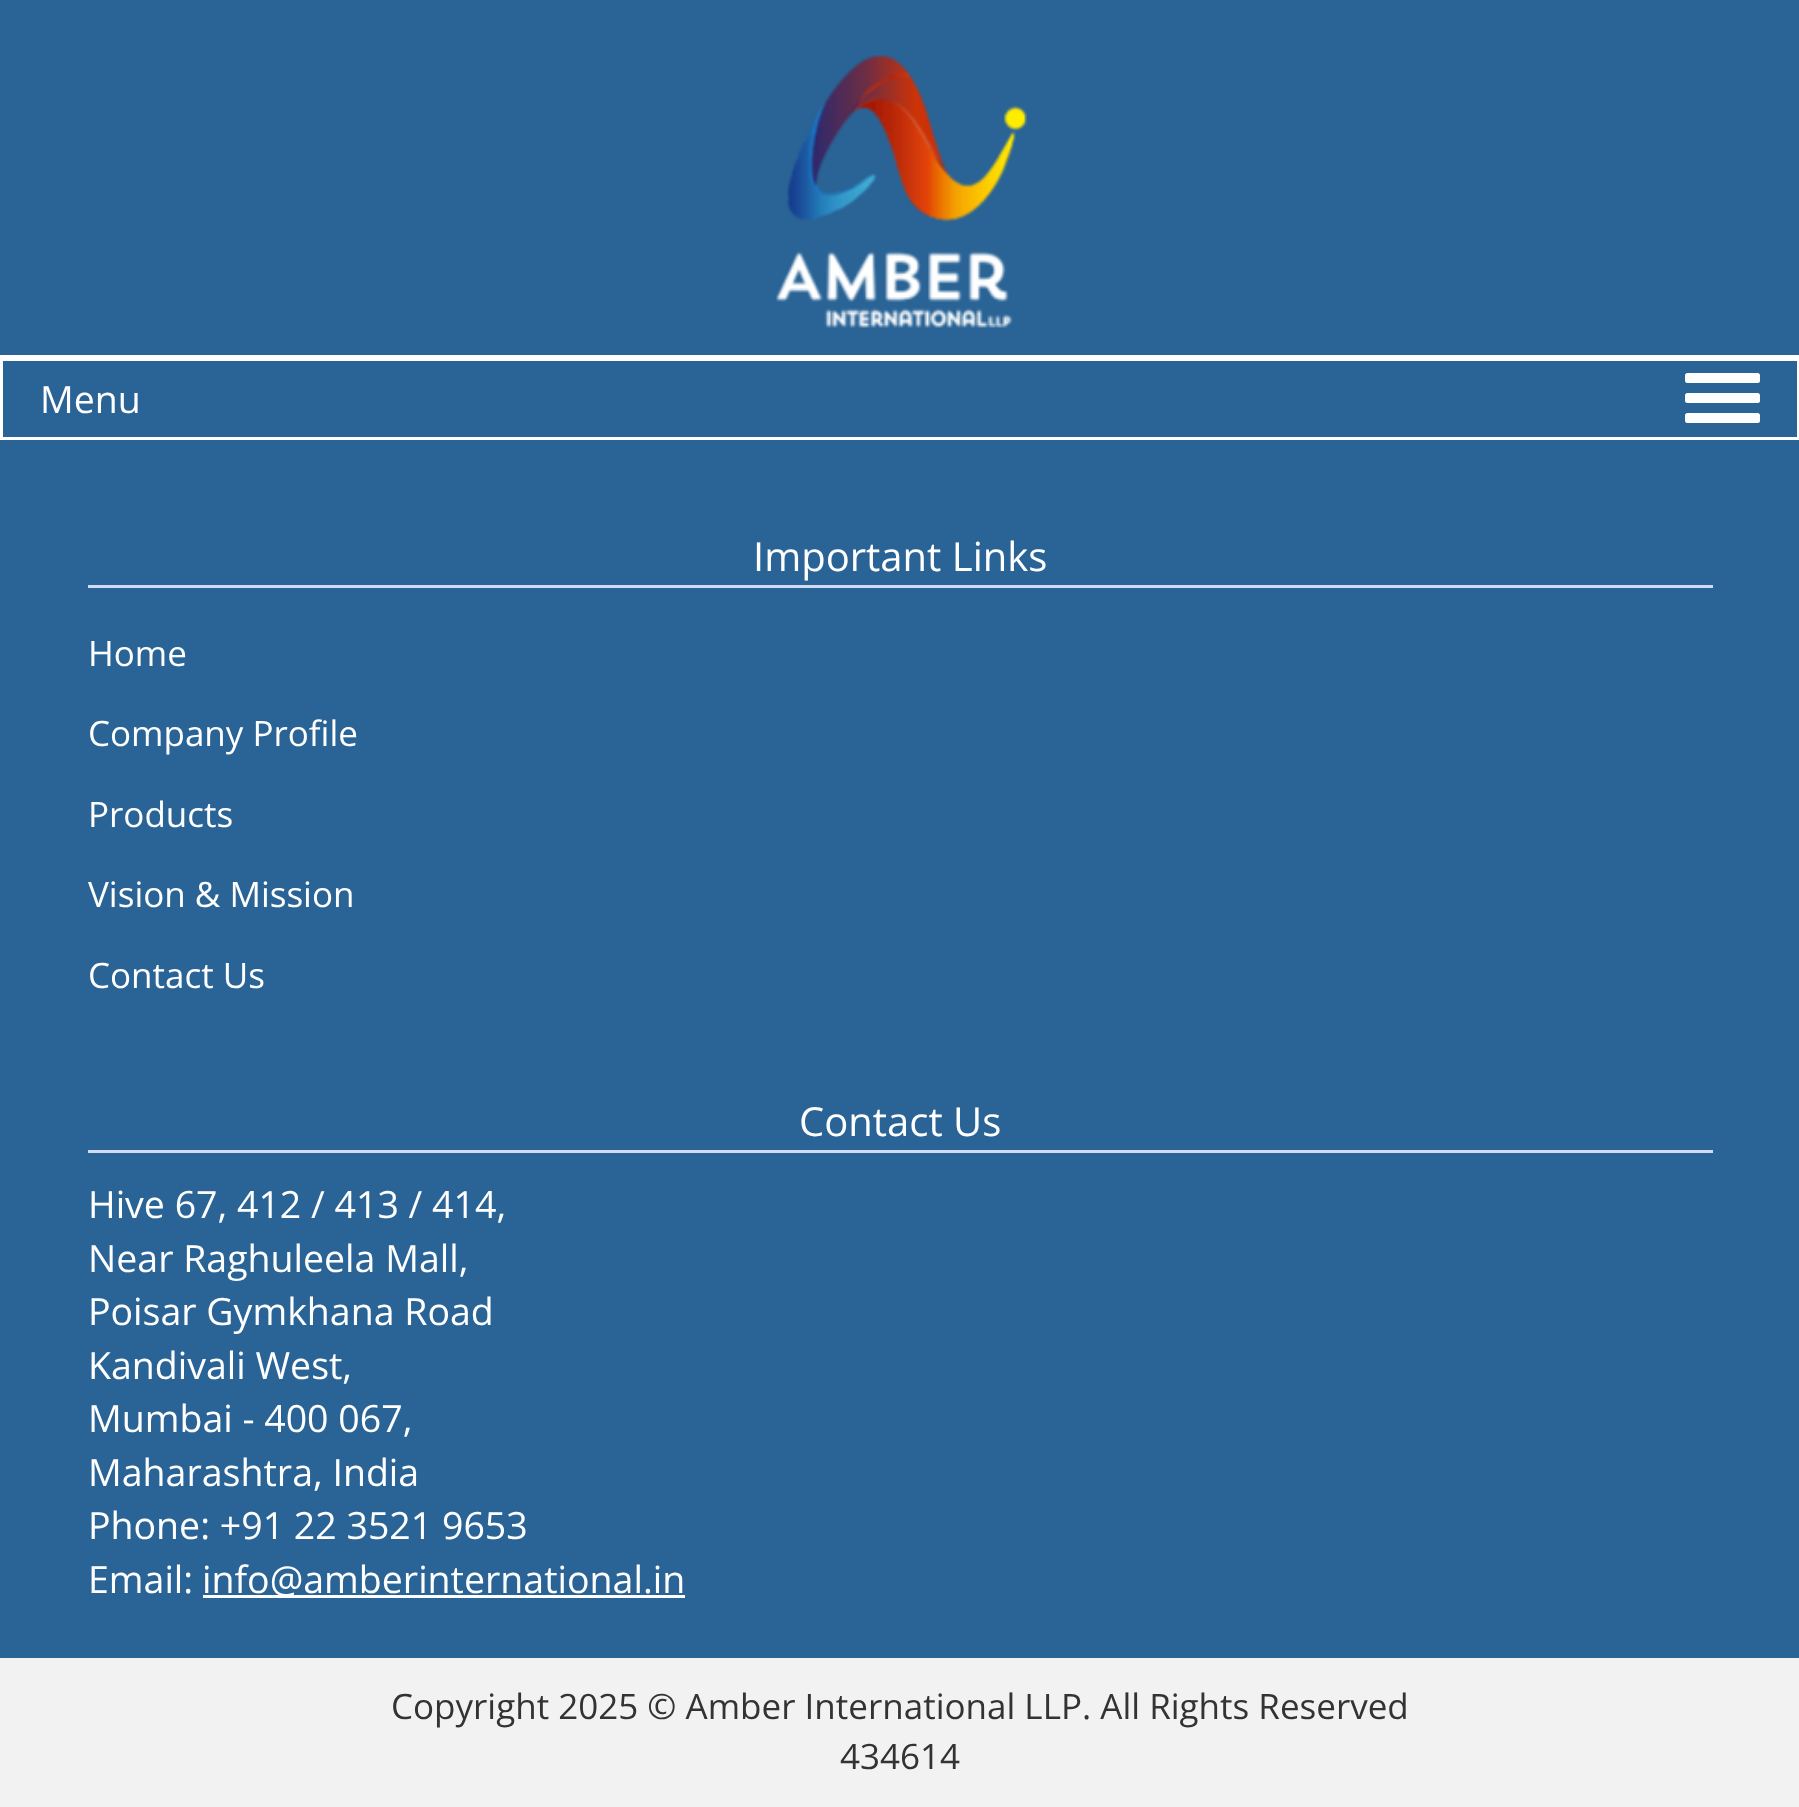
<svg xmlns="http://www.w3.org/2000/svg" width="1799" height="1807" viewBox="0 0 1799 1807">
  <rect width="100%" height="100%" fill="rgb(242,242,242)"/>
  <rect x="0" y="0" width="1799" height="437" fill="rgb(42,100,150)"/>
  <image x="776" y="55" width="251" height="273" href="pic1.png"/>
  <rect x="0" y="355" width="1799" height="3" fill="rgb(255,255,255)"/>
  <rect x="1.5" y="359.5" width="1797" height="79" fill="none" stroke="rgb(255,255,255)" stroke-width="3"/>
  <text x="40" y="413" font-family="Open Sans" font-size="37.5" fill="rgb(255,255,255)">Menu</text>
  <rect x="1685" y="373" width="75" height="10" rx="2.5" fill="rgb(255,255,255)"/>
  <rect x="1685" y="393" width="75" height="10" rx="2.5" fill="rgb(255,255,255)"/>
  <rect x="1685" y="413" width="75" height="10" rx="2.5" fill="rgb(255,255,255)"/>
  <rect x="0" y="440" width="1799" height="1218" fill="rgb(42,100,150)"/>
  <rect x="88" y="585" width="1625" height="3" fill="rgb(209,220,244)"/>
  <text x="753" y="571" font-family="Open Sans" font-size="40" fill="rgb(255,255,255)">Important Links</text>
  <g font-family="Open Sans" font-size="35" fill="rgb(255,255,255)">
    <text x="88" y="666">Home</text>
    <text x="88" y="746">Company Profile</text>
    <text x="88" y="827">Products</text>
    <text x="88" y="907">Vision &amp; Mission</text>
    <text x="88" y="988">Contact Us</text>
  </g>
  <rect x="88" y="1150" width="1625" height="3" fill="rgb(209,220,244)"/>
  <text x="799" y="1136" font-family="Open Sans" font-size="40" fill="rgb(255,255,255)">Contact Us</text>
  <g font-family="Open Sans" font-size="37.5" fill="rgb(255,255,255)">
    <text>
      <tspan x="88" y="1218">Hive 67, 412 / 413 / 414,</tspan>
      <tspan x="88" y="1272">Near Raghuleela Mall,</tspan>
      <tspan x="88" y="1325">Poisar Gymkhana Road</tspan>
      <tspan x="88" y="1379">Kandivali West,</tspan>
      <tspan x="88" y="1432">Mumbai - 400 067,</tspan>
      <tspan x="88" y="1486">Maharashtra, India</tspan>
      <tspan x="88" y="1539">Phone: +91 22 3521 9653</tspan>
      <tspan x="88" y="1593">Email:</tspan>
    </text>
  </g>
  <rect x="203" y="1595" width="482" height="3" fill="rgb(255,255,255)"/>
  <text x="202" y="1593" font-family="Open Sans" font-size="37.5" fill="rgb(255,255,255)">info@amberinternational.in</text>
  <g font-family="Open Sans" font-size="35" fill="rgb(51,51,51)">
    <text x="391" y="1719">Copyright 2025 © Amber International LLP. All Rights Reserved</text>
    <text x="840" y="1769">434614</text>
  </g>
</svg>
